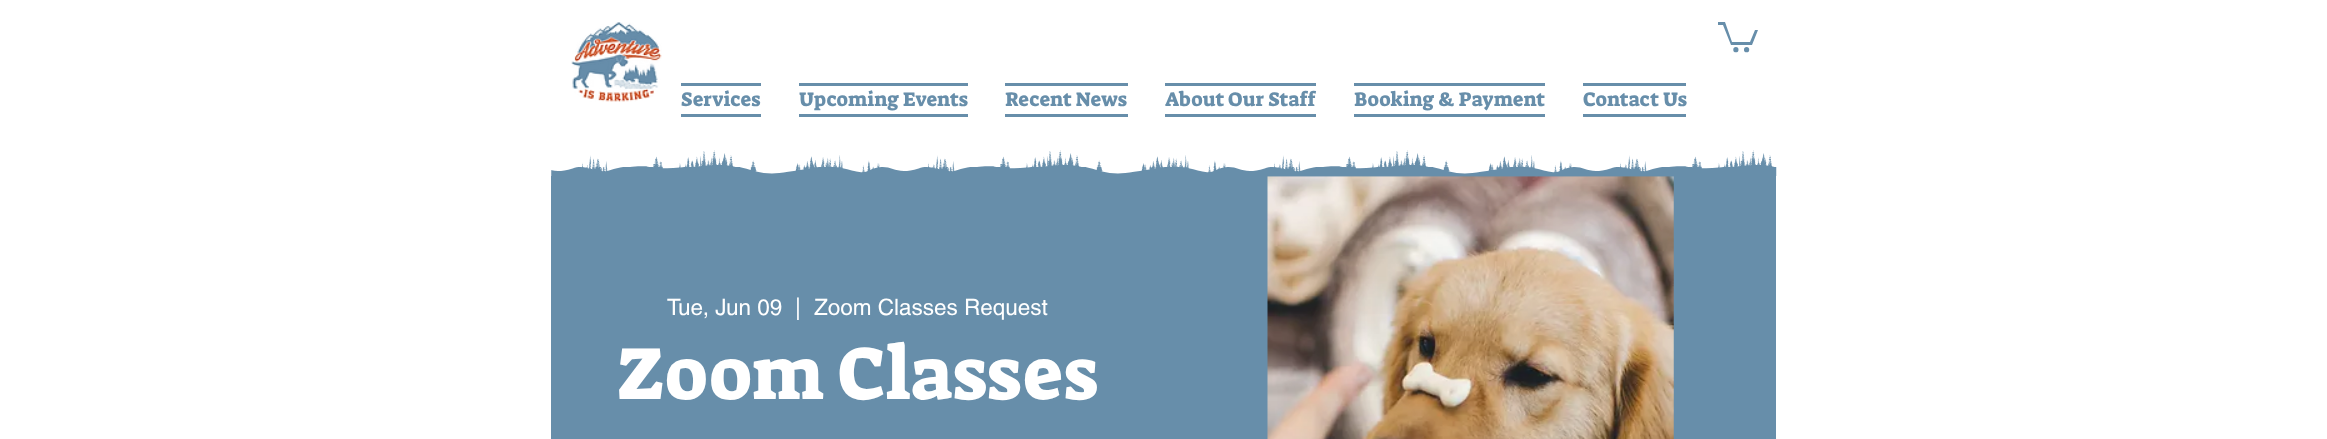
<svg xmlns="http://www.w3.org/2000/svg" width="2327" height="439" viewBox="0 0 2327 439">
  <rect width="100%" height="100%" fill="rgb(255,255,255)"/>
  <image x="571" y="22" width="91" height="80" href="pic1.png"/>
  <path d="M1758 30L1752 45H1731L1723 25H1718V22H1725L1732 42H1750L1755 30" fill="rgb(103,142,170)"/>
  <circle cx="1746.6" cy="49.7" r="2.6" fill="rgb(103,142,170)"/>
  <circle cx="1735.9" cy="49.7" r="2.6" fill="rgb(103,142,170)"/>
  <rect x="681" y="83" width="80" height="3" fill="rgb(103,142,170)"/>
  <rect x="681" y="114" width="80" height="3" fill="rgb(103,142,170)"/>
  <text x="681" y="106" font-family="Suez One" font-size="20" fill="rgb(103,142,170)">Services</text>
  <rect x="799" y="83" width="169" height="3" fill="rgb(103,142,170)"/>
  <rect x="799" y="114" width="169" height="3" fill="rgb(103,142,170)"/>
  <text x="799" y="106" font-family="Suez One" font-size="20" fill="rgb(103,142,170)">Upcoming Events</text>
  <rect x="1005" y="83" width="123" height="3" fill="rgb(103,142,170)"/>
  <rect x="1005" y="114" width="123" height="3" fill="rgb(103,142,170)"/>
  <text x="1005" y="106" font-family="Suez One" font-size="20" fill="rgb(103,142,170)">Recent News</text>
  <rect x="1165" y="83" width="151" height="3" fill="rgb(103,142,170)"/>
  <rect x="1165" y="114" width="151" height="3" fill="rgb(103,142,170)"/>
  <text x="1165" y="106" font-family="Suez One" font-size="20" fill="rgb(103,142,170)">About Our Staff</text>
  <rect x="1354" y="83" width="191" height="3" fill="rgb(103,142,170)"/>
  <rect x="1354" y="114" width="191" height="3" fill="rgb(103,142,170)"/>
  <text x="1354" y="106" font-family="Suez One" font-size="20" fill="rgb(103,142,170)">Booking &amp; Payment</text>
  <rect x="1583" y="83" width="103" height="3" fill="rgb(103,142,170)"/>
  <rect x="1583" y="114" width="103" height="3" fill="rgb(103,142,170)"/>
  <text x="1583" y="106" font-family="Suez One" font-size="20" fill="rgb(103,142,170)">Contact Us</text>
  <image x="551" y="150" width="1226" height="26" href="pic2.png"/>
  <rect x="551" y="176" width="1225" height="263" fill="rgb(103,142,170)"/>
  <image x="1267" y="176" width="407" height="263" href="pic3.png"/>
  <g font-family="helvetica" font-size="22.5" fill="rgb(255,255,255)">
    <text x="667" y="315">Tue, Jun 09</text>
    <text x="795" y="315">|</text>
    <text x="814" y="315">Zoom Classes Request</text>
  </g>
  <text x="617" y="399" font-family="Suez One" font-size="75" fill="rgb(255,255,255)">Zoom Classes</text>
</svg>
